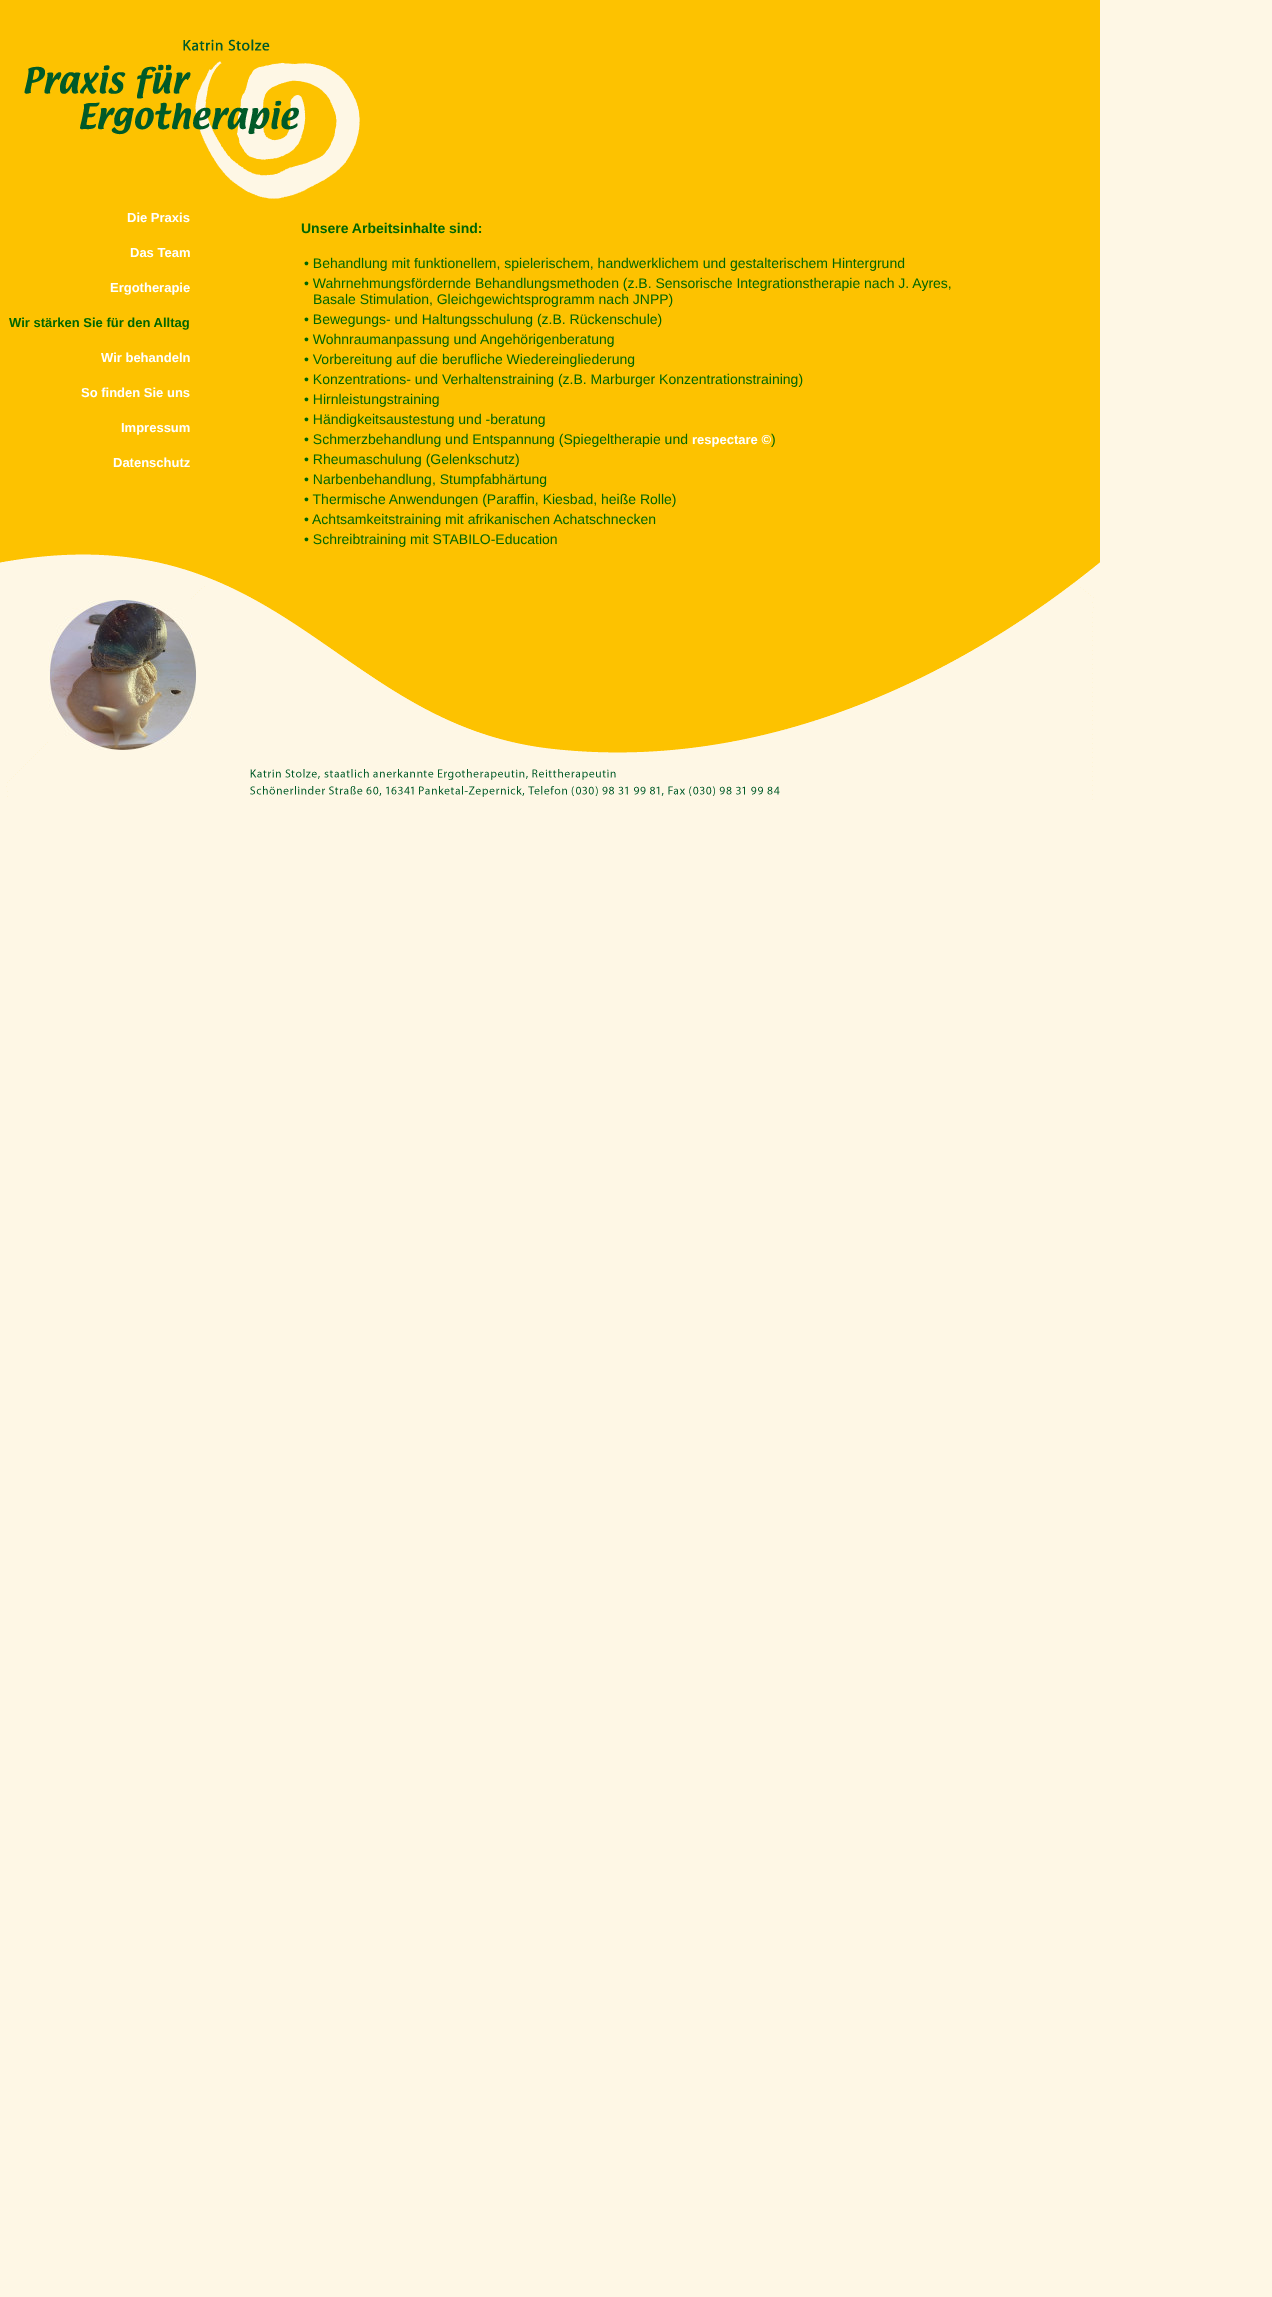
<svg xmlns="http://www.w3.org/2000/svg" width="1272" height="2297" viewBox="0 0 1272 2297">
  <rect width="100%" height="100%" fill="rgb(254,247,229)"/>
  <rect x="0" y="0" width="1100" height="550" fill="rgb(253,194,0)"/>
  <image x="24" y="39" width="336" height="160" href="pic1.png"/>
  <g font-family="Liberation Sans" font-size="13" font-weight="bold" fill="rgb(255,255,255)">
    <text x="127" y="222">Die Praxis</text>
    <text x="130" y="257">Das Team</text>
    <text x="110" y="292">Ergotherapie</text>
  </g>
  <text x="9" y="327" font-family="Liberation Sans" font-size="13" font-weight="bold" fill="rgb(0,102,0)">Wir stärken Sie für den Alltag</text>
  <g font-family="Liberation Sans" font-size="13" font-weight="bold" fill="rgb(255,255,255)">
    <text x="101" y="362">Wir behandeln</text>
    <text x="81" y="397">So finden Sie uns</text>
    <text x="121" y="432">Impressum</text>
    <text x="113" y="467">Datenschutz</text>
  </g>
  <text x="301" y="233" font-family="Liberation Sans" font-size="14" font-weight="bold" fill="rgb(0,102,0)">Unsere Arbeitsinhalte sind:</text>
  <g font-family="Liberation Sans" font-size="14" fill="rgb(0,102,0)">
    <text>
      <tspan x="304" y="268">• Behandlung mit funktionellem, spielerischem, handwerklichem und gestalterischem Hintergrund</tspan>
      <tspan x="304" y="288">• Wahrnehmungsfördernde Behandlungsmethoden (z.B. Sensorische Integrationstherapie nach J. Ayres,</tspan>
    </text>
    <text x="313" y="304">Basale Stimulation, Gleichgewichtsprogramm nach JNPP)</text>
    <text>
      <tspan x="304" y="324">• Bewegungs- und Haltungsschulung (z.B. Rückenschule)</tspan>
      <tspan x="304" y="344">• Wohnraumanpassung und Angehörigenberatung</tspan>
      <tspan x="304" y="364">• Vorbereitung auf die berufliche Wiedereingliederung</tspan>
      <tspan x="304" y="384">• Konzentrations- und Verhaltenstraining (z.B. Marburger Konzentrationstraining)</tspan>
      <tspan x="304" y="404">• Hirnleistungstraining</tspan>
      <tspan x="304" y="424">• Händigkeitsaustestung und -beratung</tspan>
      <tspan x="304" y="444">• Schmerzbehandlung und Entspannung (Spiegeltherapie und</tspan>
    </text>
  </g>
  <text x="692" y="444" font-family="Liberation Sans" font-size="13" font-weight="bold" fill="rgb(255,255,255)">respectare ©</text>
  <g font-family="Liberation Sans" font-size="14" fill="rgb(0,102,0)">
    <text x="771" y="444">)</text>
    <text>
      <tspan x="304" y="464">• Rheumaschulung (Gelenkschutz)</tspan>
      <tspan x="304" y="484">• Narbenbehandlung, Stumpfabhärtung</tspan>
      <tspan x="304" y="504">• Thermische Anwendungen (Paraffin, Kiesbad, heiße Rolle)</tspan>
      <tspan x="304" y="524">• Achtsamkeitstraining mit afrikanischen Achatschnecken</tspan>
      <tspan x="304" y="544">• Schreibtraining mit STABILO-Education</tspan>
    </text>
  </g>
  <image x="0" y="550" width="1100" height="250" href="pic2.png"/>
  <image x="48" y="600" width="149" height="150" href="pic3.png"/>
</svg>
